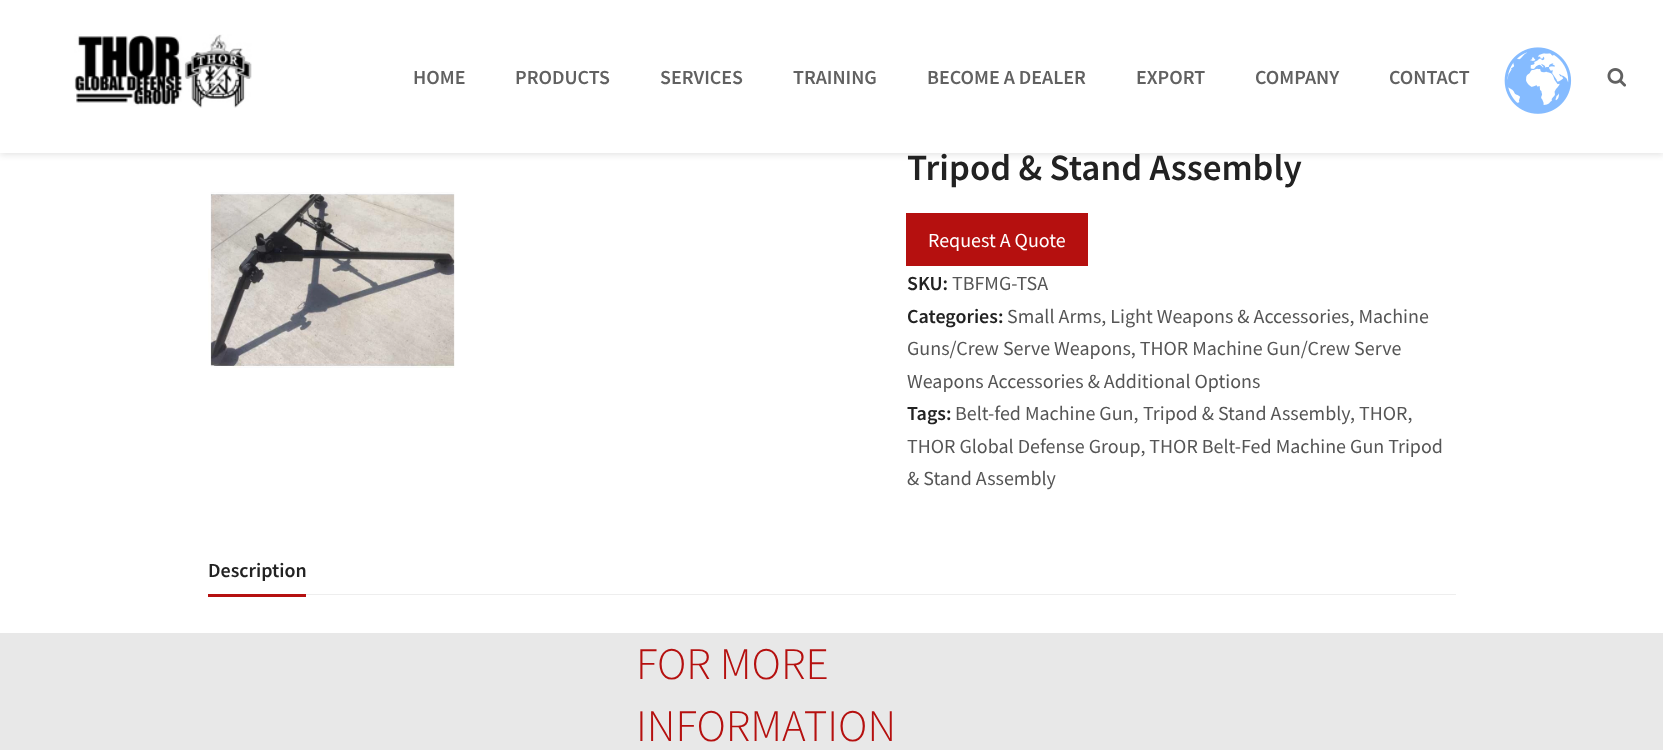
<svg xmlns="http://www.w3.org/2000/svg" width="1663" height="750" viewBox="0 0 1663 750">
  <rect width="100%" height="100%" fill="rgb(255,255,255)"/>
  <rect x="0" y="3" width="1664" height="152" fill="rgba(0,0,0,0.1)" filter="blur(3px)"/>
  <rect x="0" y="0" width="1663" height="153" fill="rgb(255,255,255)"/>
  <image x="74" y="34" width="178" height="74" href="pic1.png"/>
  <g font-family="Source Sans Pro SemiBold" font-size="20" font-weight="600" fill="rgb(97,97,97)">
    <text x="413" y="84">HOME</text>
    <text x="515" y="84">PRODUCTS</text>
    <text x="660" y="84">SERVICES</text>
    <text x="793" y="84">TRAINING</text>
    <text x="927" y="84">BECOME A DEALER</text>
    <text x="1136" y="84">EXPORT</text>
    <text x="1255" y="84">COMPANY</text>
    <text x="1389" y="84">CONTACT</text>
  </g>
  <image x="1504" y="47" width="68" height="67" href="pic2.png"/>
  <image x="1607" y="68" width="19" height="19" href="pic3.png"/>
  <image x="208" y="192" width="247" height="176" href="pic4.png"/>
  <text x="907" y="180" font-family="Source Sans Pro SemiBold" font-size="37" font-weight="600" fill="rgb(34,34,34)">Tripod &amp; Stand Assembly</text>
  <rect x="906" y="213" width="182" height="53" fill="rgb(181,16,15)"/>
  <text x="928" y="247" font-family="Source Sans Pro" font-size="20" fill="rgb(255,255,255)">Request A Quote</text>
  <text x="907" y="290" font-family="Source Sans Pro SemiBold" font-size="20" font-weight="600" fill="rgb(34,34,34)">SKU:</text>
  <text x="952" y="290" font-family="Source Sans Pro" font-size="20" fill="rgb(85,85,85)">TBFMG-TSA</text>
  <text x="907" y="323" font-family="Source Sans Pro SemiBold" font-size="20" font-weight="600" fill="rgb(34,34,34)">Categories:</text>
  <g font-family="Source Sans Pro" font-size="20" fill="rgb(85,85,85)">
    <text x="1007" y="323">Small Arms, Light Weapons &amp; Accessories, Machine</text>
    <text>
      <tspan x="907" y="355">Guns/Crew Serve Weapons, THOR Machine Gun/Crew Serve</tspan>
      <tspan x="907" y="388">Weapons Accessories &amp; Additional Options</tspan>
    </text>
  </g>
  <text x="907" y="420" font-family="Source Sans Pro SemiBold" font-size="20" font-weight="600" fill="rgb(34,34,34)">Tags:</text>
  <g font-family="Source Sans Pro" font-size="20" fill="rgb(85,85,85)">
    <text x="955" y="420">Belt-fed Machine Gun,</text>
    <text x="1143" y="420">Tripod &amp; Stand Assembly</text>
    <text x="1350" y="420">, THOR,</text>
    <text>
      <tspan x="907" y="453">THOR Global Defense Group, THOR Belt-Fed Machine Gun Tripod</tspan>
      <tspan x="907" y="485">&amp; Stand Assembly</tspan>
    </text>
  </g>
  <rect x="306" y="594" width="1150" height="1" fill="rgb(238,238,238)"/>
  <rect x="208" y="594" width="98" height="3" fill="rgb(181,16,16)"/>
  <text x="208" y="577" font-family="Source Sans Pro SemiBold" font-size="20" font-weight="600" fill="rgb(34,34,34)">Description</text>
  <rect x="0" y="633" width="1663" height="117" fill="rgb(232,232,232)"/>
  <g font-family="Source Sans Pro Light" font-size="45" font-weight="300" fill="rgb(181,16,15)">
    <text>
      <tspan x="636" y="679">FOR MORE</tspan>
      <tspan x="636" y="741">INFORMATION</tspan>
    </text>
  </g>
</svg>
